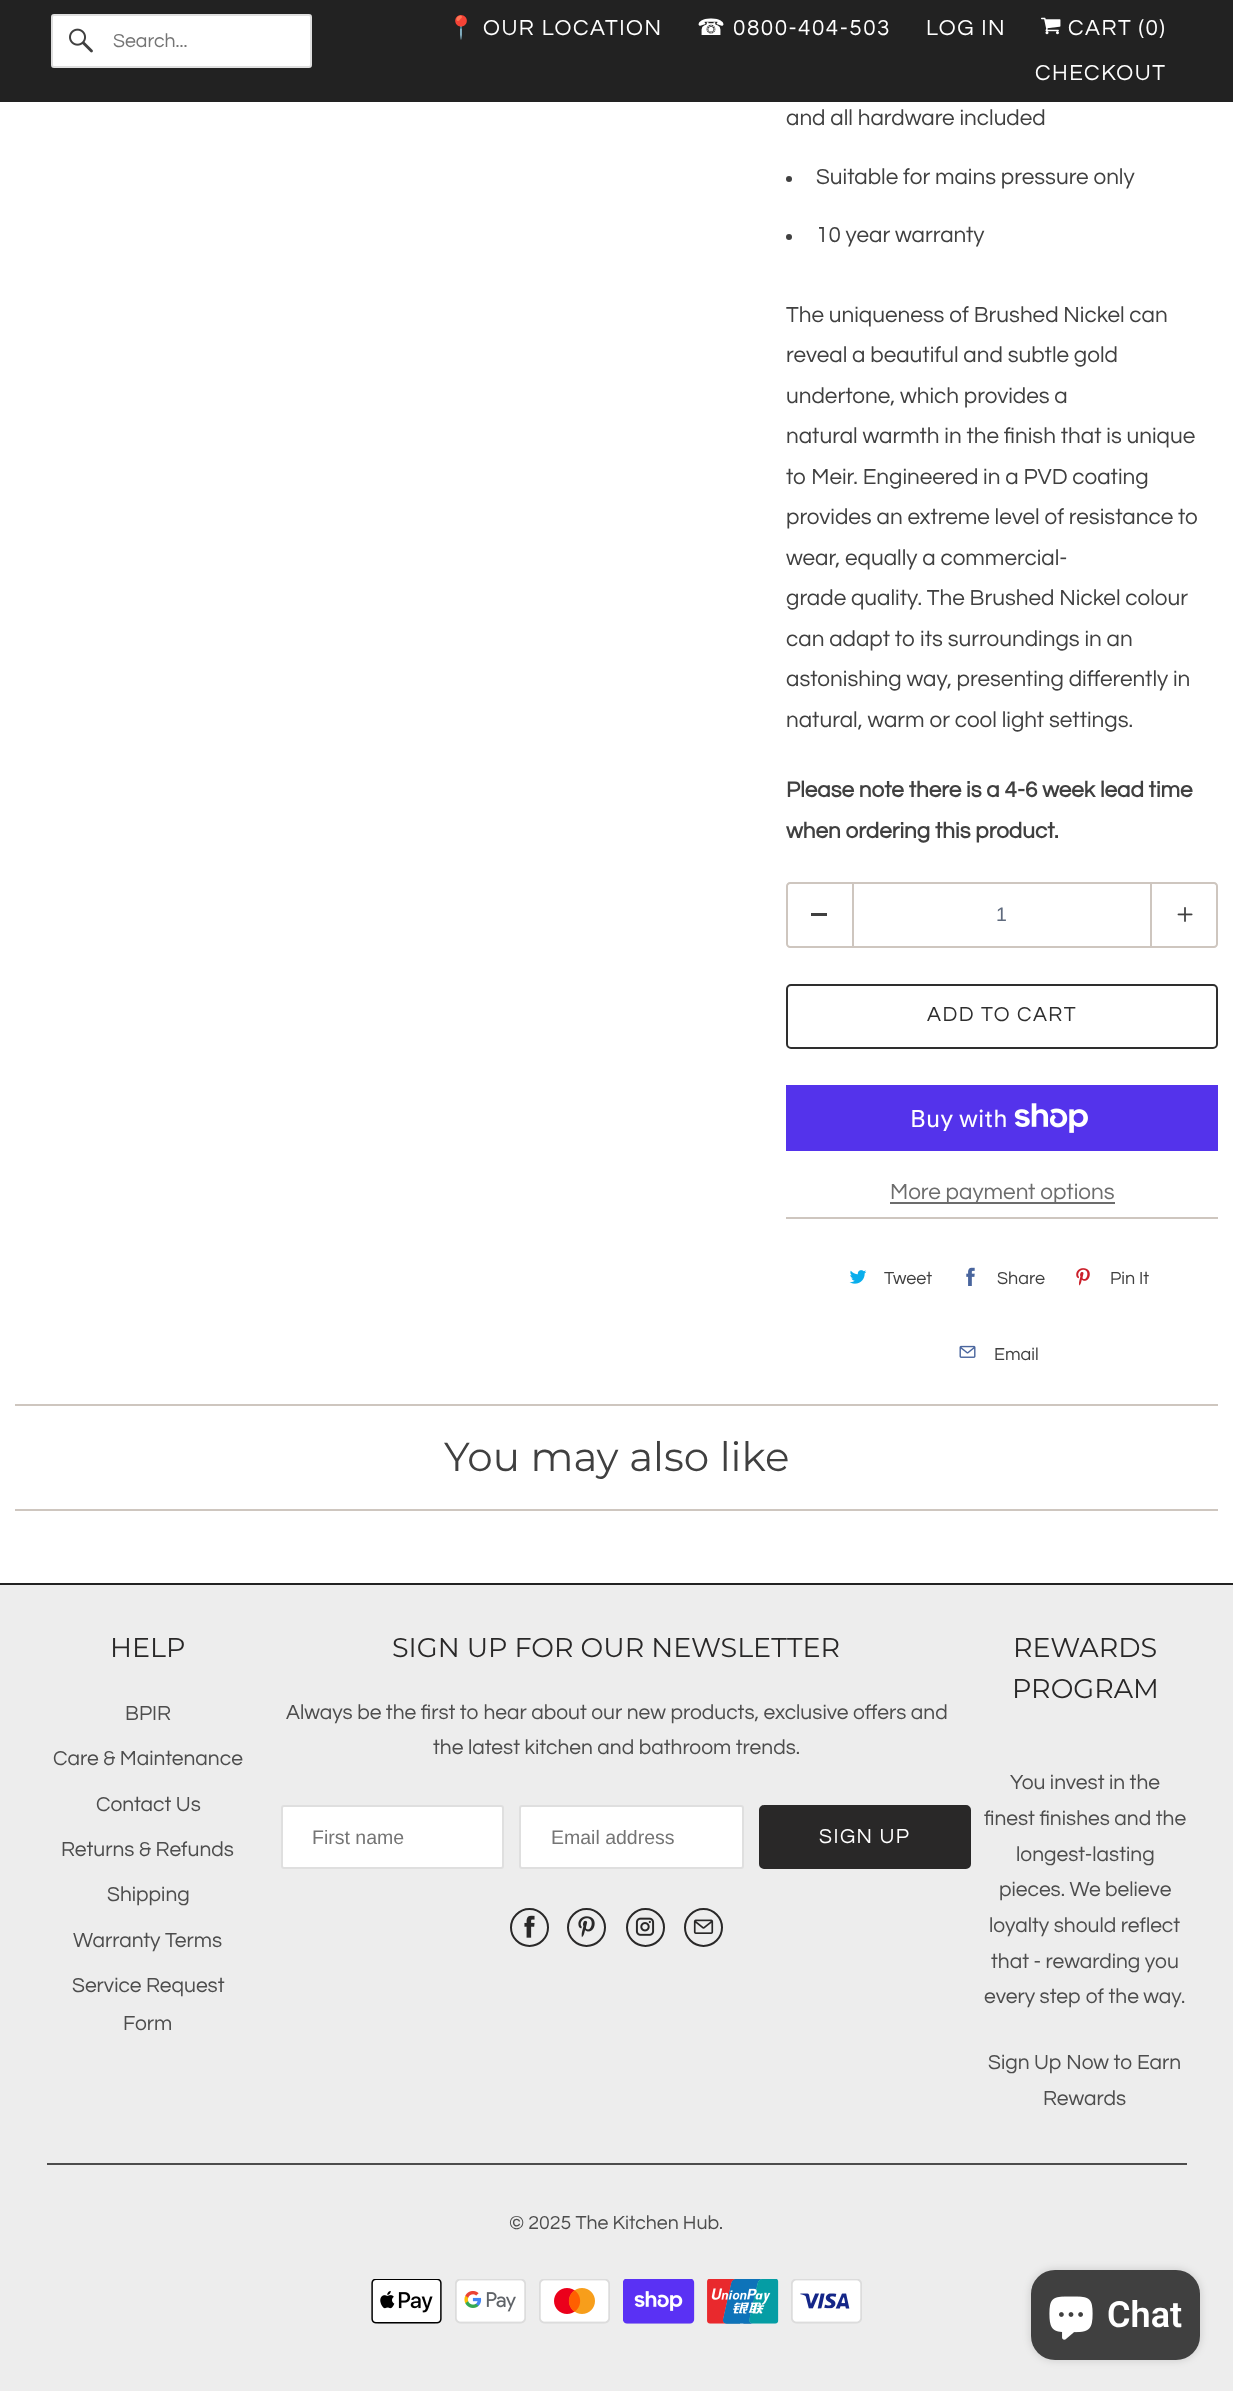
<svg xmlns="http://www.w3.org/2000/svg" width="1233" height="2391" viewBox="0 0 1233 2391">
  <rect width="100%" height="100%" fill="rgb(255,255,255)"/>
  <rect x="0" y="0" width="1233" height="102" fill="rgb(34,34,34)"/>
  <rect x="52" y="15" width="259" height="52" rx="2" fill="rgb(255,255,255)" stroke="rgb(223,223,223)" stroke-width="2"/>
  <image x="69" y="28" width="24" height="25" href="pic1.png"/>
  <text x="113" y="47" font-family="Questrial" font-size="19.5" fill="rgb(117,117,117)">Search...</text>
  <text x="447" y="35" font-family="Noto Color Emoji" font-size="22.5" letter-spacing="1.5" fill="rgb(255,255,255)">📍</text>
  <text x="483" y="35" font-family="Questrial" font-size="22.5" letter-spacing="1.5" fill="rgb(255,255,255)">OUR LOCATION</text>
  <text x="697" y="35" font-family="DejaVu Sans" font-size="22.5" letter-spacing="1.5" fill="rgb(255,255,255)">☎︎</text>
  <g font-family="Questrial" font-size="22.5" letter-spacing="1.5" fill="rgb(255,255,255)">
    <text x="733" y="35">0800-404-503</text>
    <text x="926" y="35">LOG IN</text>
  </g>
  <image x="1041" y="17" width="20" height="18" href="pic2.png"/>
  <g font-family="Questrial" font-size="22.5" letter-spacing="1.5" fill="rgb(255,255,255)">
    <text x="1068" y="35">CART (0)</text>
    <text x="1035" y="80">CHECKOUT</text>
  </g>
  <text x="786" y="125" font-family="Questrial" font-size="22.5" fill="rgb(64,64,64)">and all hardware included</text>
  <circle cx="789" cy="179" r="3" fill="rgb(64,64,64)"/>
  <text x="816" y="184" font-family="Questrial" font-size="22.5" fill="rgb(64,64,64)">Suitable for mains pressure only</text>
  <circle cx="789" cy="237" r="3" fill="rgb(64,64,64)"/>
  <g font-family="Questrial" font-size="22.5" fill="rgb(64,64,64)">
    <text x="816" y="242">10 year warranty</text>
    <text>
      <tspan x="786" y="322">The uniqueness of Brushed Nickel can</tspan>
      <tspan x="786" y="362">reveal a beautiful and subtle gold</tspan>
      <tspan x="786" y="403">undertone, which provides a</tspan>
      <tspan x="786" y="443">natural warmth in the finish that is unique</tspan>
      <tspan x="786" y="484">to Meir. Engineered in a PVD coating</tspan>
      <tspan x="786" y="524">provides an extreme level of resistance to</tspan>
      <tspan x="786" y="565">wear, equally a commercial-</tspan>
      <tspan x="786" y="605">grade quality. The Brushed Nickel colour</tspan>
      <tspan x="786" y="646">can adapt to its surroundings in an</tspan>
      <tspan x="786" y="686">astonishing way, presenting differently in</tspan>
      <tspan x="786" y="727">natural, warm or cool light settings.</tspan>
    </text>
  </g>
  <g font-family="Questrial" font-size="22.5" font-weight="bold" fill="rgb(64,64,64)">
    <text>
      <tspan x="786" y="797">Please note there is a 4-6 week lead time</tspan>
      <tspan x="786" y="838">when ordering this product.</tspan>
    </text>
  </g>
  <path d="M790 882H852V948H790C788 948 786 946 786 944V886C786 884 788 882 790 882ZM790 884H852V946H790C789 946 788 945 788 944V886C788 885 789 884 790 884Z" fill="rgb(206,198,191)" fill-rule="evenodd"/>
  <rect x="811" y="913" width="16" height="3" fill="rgb(64,64,64)"/>
  <rect x="853" y="883" width="298" height="64" fill="none" stroke="rgb(206,198,191)" stroke-width="2"/>
  <text x="996" y="921" font-family="Liberation Sans" font-size="19.5" fill="rgb(95,106,125)">1</text>
  <path d="M1152 882H1214C1216 882 1218 884 1218 886V944C1218 946 1216 948 1214 948H1152ZM1152 884H1214C1215 884 1216 885 1216 886V944C1216 945 1215 946 1214 946H1152Z" fill="rgb(206,198,191)" fill-rule="evenodd"/>
  <image x="1177" y="907" width="16" height="15" href="pic3.png"/>
  <rect x="787" y="985" width="430" height="63" rx="4" fill="none" stroke="rgb(46,46,46)" stroke-width="2"/>
  <text x="927" y="1021" font-family="Questrial" font-size="21" letter-spacing="1.5" fill="rgb(46,46,46)">ADD TO CART</text>
  <rect x="786" y="1085" width="432" height="66" fill="rgb(84,51,235)"/>
  <text x="910" y="1127" font-family="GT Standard" font-size="24" fill="rgb(255,255,255)">Buy with</text>
  <image x="1014" y="1103" width="74" height="30" href="pic4.png"/>
  <rect x="890" y="1202" width="225" height="2" fill="rgb(108,108,108)"/>
  <text x="890" y="1199" font-family="Questrial" font-size="22.5" fill="rgb(108,108,108)">More payment options</text>
  <rect x="786" y="1217" width="432" height="2" fill="rgb(206,198,191)"/>
  <image x="849" y="1270" width="18" height="14" href="pic5.png"/>
  <text x="884" y="1284" font-family="Questrial" font-size="18" fill="rgb(64,64,64)">Tweet</text>
  <image x="966" y="1267" width="9" height="19" href="pic6.png"/>
  <text x="997" y="1284" font-family="Questrial" font-size="18" fill="rgb(64,64,64)">Share</text>
  <image x="1076" y="1268" width="14" height="18" href="pic7.png"/>
  <text x="1110" y="1284" font-family="Questrial" font-size="18" fill="rgb(64,64,64)">Pin It</text>
  <image x="959" y="1345" width="17" height="13" href="pic8.png"/>
  <text x="994" y="1360" font-family="Questrial" font-size="18" fill="rgb(64,64,64)">Email</text>
  <rect x="15" y="1404" width="1203" height="2" fill="rgb(206,198,191)"/>
  <rect x="15" y="1509" width="1203" height="2" fill="rgb(206,198,191)"/>
  <text x="444" y="1471" font-family="Montserrat" font-size="40.5" fill="rgb(64,64,64)">You may also like</text>
  <rect x="0" y="1585" width="1233" height="806" fill="rgb(237,237,237)"/>
  <rect x="0" y="1583" width="1233" height="2" fill="rgb(34,34,34)"/>
  <text x="110" y="1657" font-family="Montserrat" font-size="27" fill="rgb(41,40,40)">HELP</text>
  <g font-family="Questrial" font-size="21" fill="rgb(77,77,77)">
    <text x="125" y="1720">BPIR</text>
    <text x="53" y="1765">Care &amp; Maintenance</text>
    <text x="96" y="1811">Contact Us</text>
    <text x="61" y="1856">Returns &amp; Refunds</text>
    <text x="107" y="1901">Shipping</text>
    <text x="73" y="1947">Warranty Terms</text>
    <text x="72" y="1992">Service Request</text>
    <text x="123" y="2030">Form</text>
  </g>
  <text x="392" y="1657" font-family="Montserrat" font-size="27" fill="rgb(41,40,40)">SIGN UP FOR OUR NEWSLETTER</text>
  <g font-family="Questrial" font-size="21" fill="rgb(77,77,77)">
    <text x="286" y="1719">Always be the first to hear about our new products, exclusive offers and</text>
    <text x="433" y="1754">the latest kitchen and bathroom trends.</text>
  </g>
  <rect x="282" y="1806" width="221" height="62" rx="2" fill="rgb(255,255,255)" stroke="rgb(223,223,223)" stroke-width="2"/>
  <text x="312" y="1844" font-family="Liberation Sans" font-size="19.5" fill="rgb(117,117,117)">First name</text>
  <rect x="520" y="1806" width="223" height="62" rx="2" fill="rgb(255,255,255)" stroke="rgb(223,223,223)" stroke-width="2"/>
  <text x="551" y="1844" font-family="Liberation Sans" font-size="19.5" fill="rgb(117,117,117)">Email address</text>
  <rect x="760" y="1806" width="210" height="62" rx="4" fill="rgb(41,40,40)" stroke="rgb(41,40,40)" stroke-width="2"/>
  <text x="819" y="1843" font-family="Questrial" font-size="21" letter-spacing="1.5" fill="rgb(255,255,255)">SIGN UP</text>
  <circle cx="529.5" cy="1927.5" r="18.5" fill="none" stroke="rgb(41,40,40)" stroke-width="2"/>
  <image x="524" y="1915" width="11" height="23" href="pic9.png"/>
  <circle cx="586.5" cy="1927.5" r="18.5" fill="none" stroke="rgb(41,40,40)" stroke-width="2"/>
  <image x="578" y="1916" width="17" height="22" href="pic10.png"/>
  <circle cx="645.5" cy="1927.5" r="18.5" fill="none" stroke="rgb(41,40,40)" stroke-width="2"/>
  <image x="635" y="1917" width="20" height="19" href="pic11.png"/>
  <circle cx="703.5" cy="1927.5" r="18.5" fill="none" stroke="rgb(41,40,40)" stroke-width="2"/>
  <image x="693" y="1919" width="21" height="15" href="pic12.png"/>
  <g font-family="Montserrat" font-size="27" fill="rgb(41,40,40)">
    <text x="1013" y="1657">REWARDS</text>
    <text x="1012" y="1698">PROGRAM</text>
  </g>
  <g font-family="Questrial" font-size="21" fill="rgb(77,77,77)">
    <text x="1010" y="1789">You invest in the</text>
    <text x="984" y="1825">finest finishes and the</text>
    <text x="1016" y="1861">longest-lasting</text>
    <text x="999" y="1896">pieces. We believe</text>
    <text x="989" y="1932">loyalty should reflect</text>
    <text x="991" y="1968">that - rewarding you</text>
    <text x="984" y="2003">every step of the way.</text>
    <text x="988" y="2069">Sign Up Now to Earn</text>
    <text x="1043" y="2105">Rewards</text>
  </g>
  <rect x="47" y="2163" width="1140" height="2" fill="rgb(77,77,77)"/>
  <text x="509" y="2229" font-family="Questrial" font-size="19.5" fill="rgb(77,77,77)">© 2025 The Kitchen Hub.</text>
  <image x="371" y="2279" width="71" height="45" href="pic13.png"/>
  <image x="455" y="2279" width="71" height="45" href="pic14.png"/>
  <image x="539" y="2279" width="71" height="45" href="pic15.png"/>
  <image x="623" y="2279" width="72" height="45" href="pic16.png"/>
  <image x="707" y="2279" width="72" height="45" href="pic17.png"/>
  <image x="791" y="2279" width="71" height="45" href="pic18.png"/>
  <rect x="1031" y="2270" width="169" height="90" rx="24" fill="rgba(0,0,0,0.15)" filter="blur(4px)"/>
  <rect x="1031" y="2270" width="169" height="90" rx="24" fill="rgb(64,64,64)"/>
  <image x="1049" y="2296" width="44" height="44" href="pic19.png"/>
  <text x="1107" y="2327" font-family="Roboto" font-size="36" font-weight="600" fill="rgb(255,255,255)">Chat</text>
</svg>
